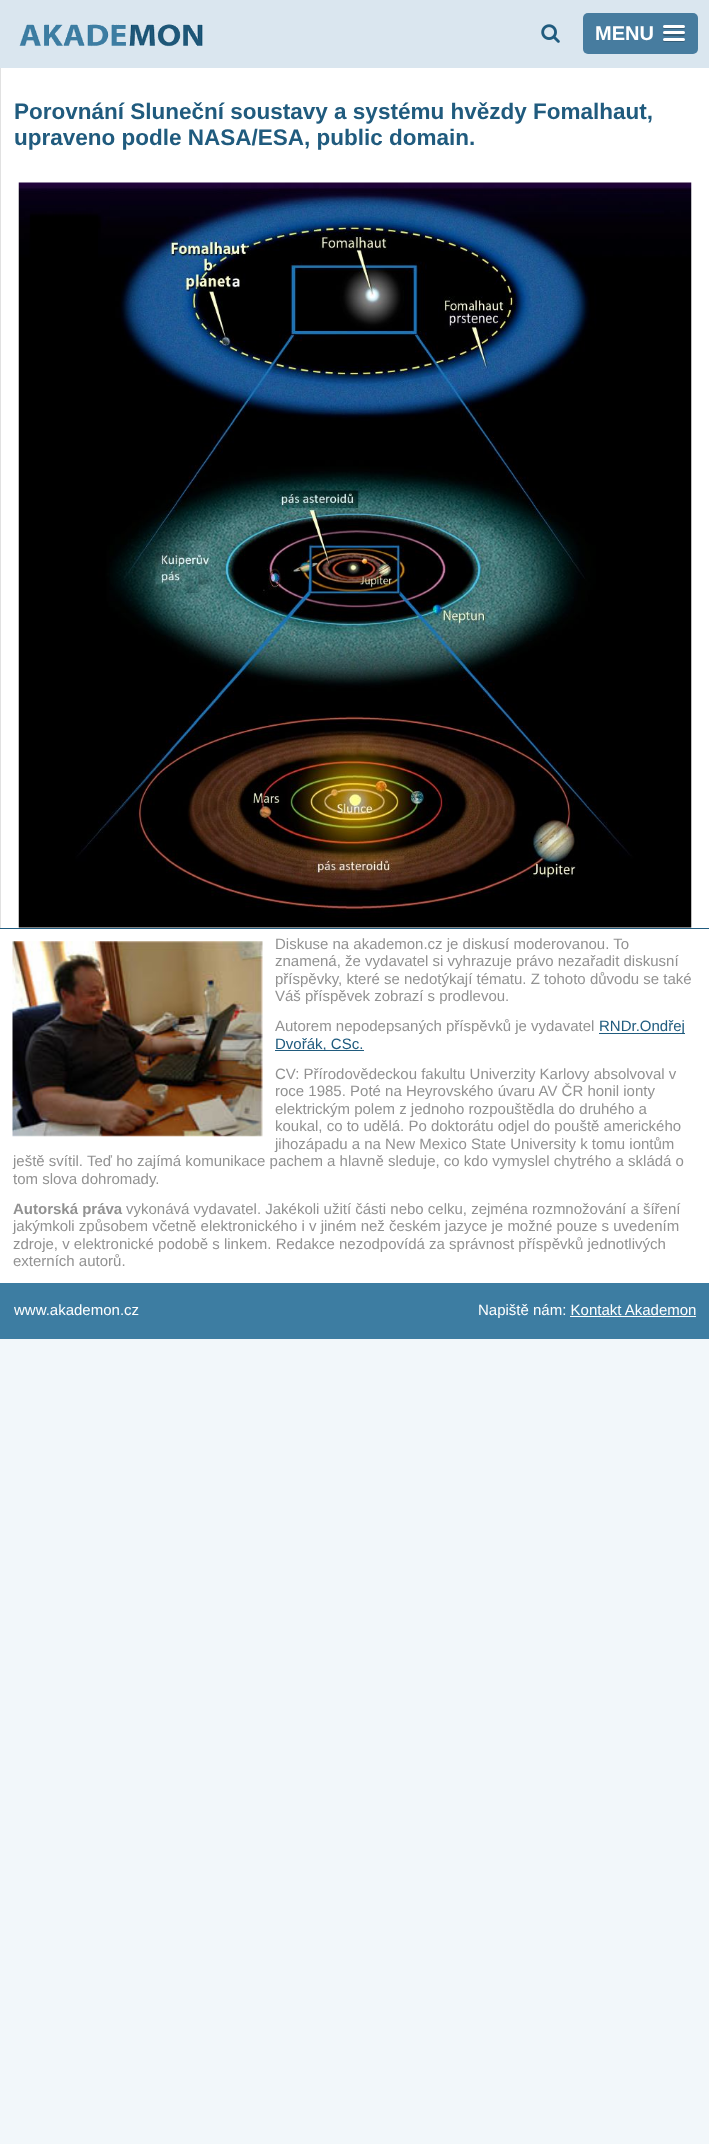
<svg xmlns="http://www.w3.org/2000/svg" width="709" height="2144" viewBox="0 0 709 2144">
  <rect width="100%" height="100%" fill="rgb(242,247,250)"/>
  <rect x="0" y="0" width="709" height="68" fill="rgb(218,230,239)"/>
  <image x="19" y="24" width="184" height="23" href="pic1.png"/>
  <image x="541" y="24" width="19" height="19" href="pic2.png"/>
  <rect x="583" y="13" width="115" height="41" rx="5" fill="rgb(71,124,159)"/>
  <text x="595" y="40" font-family="Liberation Sans" font-size="20" font-weight="bold" fill="rgb(255,255,255)">MENU</text>
  <path d="M663 27.5C662.5 29.5 666.5 29 667.5 29H680.5C681 29 686 29.5 685 27L684 27.5C682 27.5 663.5 27.5 663 27.5Z" fill="rgb(53,93,119)"/>
  <rect x="663" y="25" width="22" height="3" rx="1.5" fill="rgb(255,255,255)"/>
  <path d="M663.5 33.5C661.5 36.5 667 36 667.5 36H674C676 36 684 36.5 684.5 35.5C685 34.5 685 34 684.5 33.5C684 34 664.5 34 663.5 33.5Z" fill="rgb(53,93,119)"/>
  <rect x="663" y="31" width="22" height="3" rx="1.5" fill="rgb(255,255,255)"/>
  <path d="M663 40C662 42.5 667 42 667.5 42H680.5C680.5 42 687 42.5 684.5 39.5L684 40Z" fill="rgb(53,93,119)"/>
  <rect x="663" y="38" width="22" height="3" rx="1.5" fill="rgb(255,255,255)"/>
  <rect x="0" y="68" width="709" height="1215" fill="rgb(255,255,255)"/>
  <rect x="0" y="68" width="1" height="860" fill="rgb(225,225,225)"/>
  <g font-family="Liberation Sans" font-size="22.5" font-weight="bold" fill="rgb(32,91,126)">
    <text>
      <tspan x="14" y="119">Porovnání Sluneční soustavy a systému hvězdy Fomalhaut,</tspan>
      <tspan x="14" y="145">upraveno podle NASA/ESA, public domain.</tspan>
    </text>
  </g>
  <image x="18" y="182" width="674" height="746" href="pic3.png"/>
  <rect x="0" y="928" width="709" height="1" fill="rgb(32,91,126)"/>
  <image x="12" y="941" width="251" height="196" href="pic4.png"/>
  <g font-family="Liberation Sans" font-size="15" fill="rgb(146,146,146)">
    <text>
      <tspan x="275" y="949">Diskuse na akademon.cz je diskusí moderovanou. To</tspan>
      <tspan x="275" y="966">znamená, že vydavatel si vyhrazuje právo nezařadit diskusní</tspan>
      <tspan x="275" y="984">příspěvky, které se nedotýkají tématu. Z tohoto důvodu se také</tspan>
      <tspan x="275" y="1001">Váš příspěvek zobrazí s prodlevou.</tspan>
    </text>
    <text x="275" y="1031">Autorem nepodepsaných příspěvků je vydavatel</text>
  </g>
  <rect x="599" y="1033" width="86" height="1" fill="rgb(32,91,126)"/>
  <text x="599" y="1031" font-family="Liberation Sans" font-size="15" fill="rgb(32,91,126)">RNDr.Ondřej</text>
  <rect x="275" y="1050" width="89" height="1" fill="rgb(32,91,126)"/>
  <text x="275" y="1049" font-family="Liberation Sans" font-size="15" fill="rgb(32,91,126)">Dvořák, CSc.</text>
  <g font-family="Liberation Sans" font-size="15" fill="rgb(146,146,146)">
    <text>
      <tspan x="275" y="1079">CV: Přírodovědeckou fakultu Univerzity Karlovy absolvoval v</tspan>
      <tspan x="275" y="1096">roce 1985. Poté na Heyrovského úvaru AV ČR honil ionty</tspan>
      <tspan x="275" y="1114">elektrickým polem z jednoho rozpouštědla do druhého a</tspan>
      <tspan x="275" y="1131">koukal, co to udělá. Po doktorátu odjel do pouště amerického</tspan>
      <tspan x="275" y="1149">jihozápadu a na New Mexico State University k tomu iontům</tspan>
    </text>
    <text>
      <tspan x="13" y="1166">ještě svítil. Teď ho zajímá komunikace pachem a hlavně sleduje, co kdo vymyslel chytrého a skládá o</tspan>
      <tspan x="13" y="1184">tom slova dohromady.</tspan>
    </text>
  </g>
  <text x="13" y="1214" font-family="Liberation Sans" font-size="15" font-weight="bold" fill="rgb(146,146,146)">Autorská práva</text>
  <g font-family="Liberation Sans" font-size="15" fill="rgb(146,146,146)">
    <text x="126" y="1214">vykonává vydavatel. Jakékoli užití části nebo celku, zejména rozmnožování a šíření</text>
    <text>
      <tspan x="13" y="1231">jakýmkoli způsobem včetně elektronického i v jiném než českém jazyce je možné pouze s uvedením</tspan>
      <tspan x="13" y="1249">zdroje, v elektronické podobě s linkem. Redakce nezodpovídá za správnost příspěvků jednotlivých</tspan>
      <tspan x="13" y="1266">externích autorů.</tspan>
    </text>
  </g>
  <rect x="0" y="1283" width="709" height="56" fill="rgb(61,125,162)"/>
  <g font-family="Liberation Sans" font-size="15" fill="rgb(255,255,255)">
    <text x="14" y="1315">www.akademon.cz</text>
    <text x="478" y="1315">Napiště nám: Kontakt Akademon</text>
  </g>
  <rect x="570" y="1316" width="126" height="1" fill="rgb(255,255,255)"/>
</svg>
